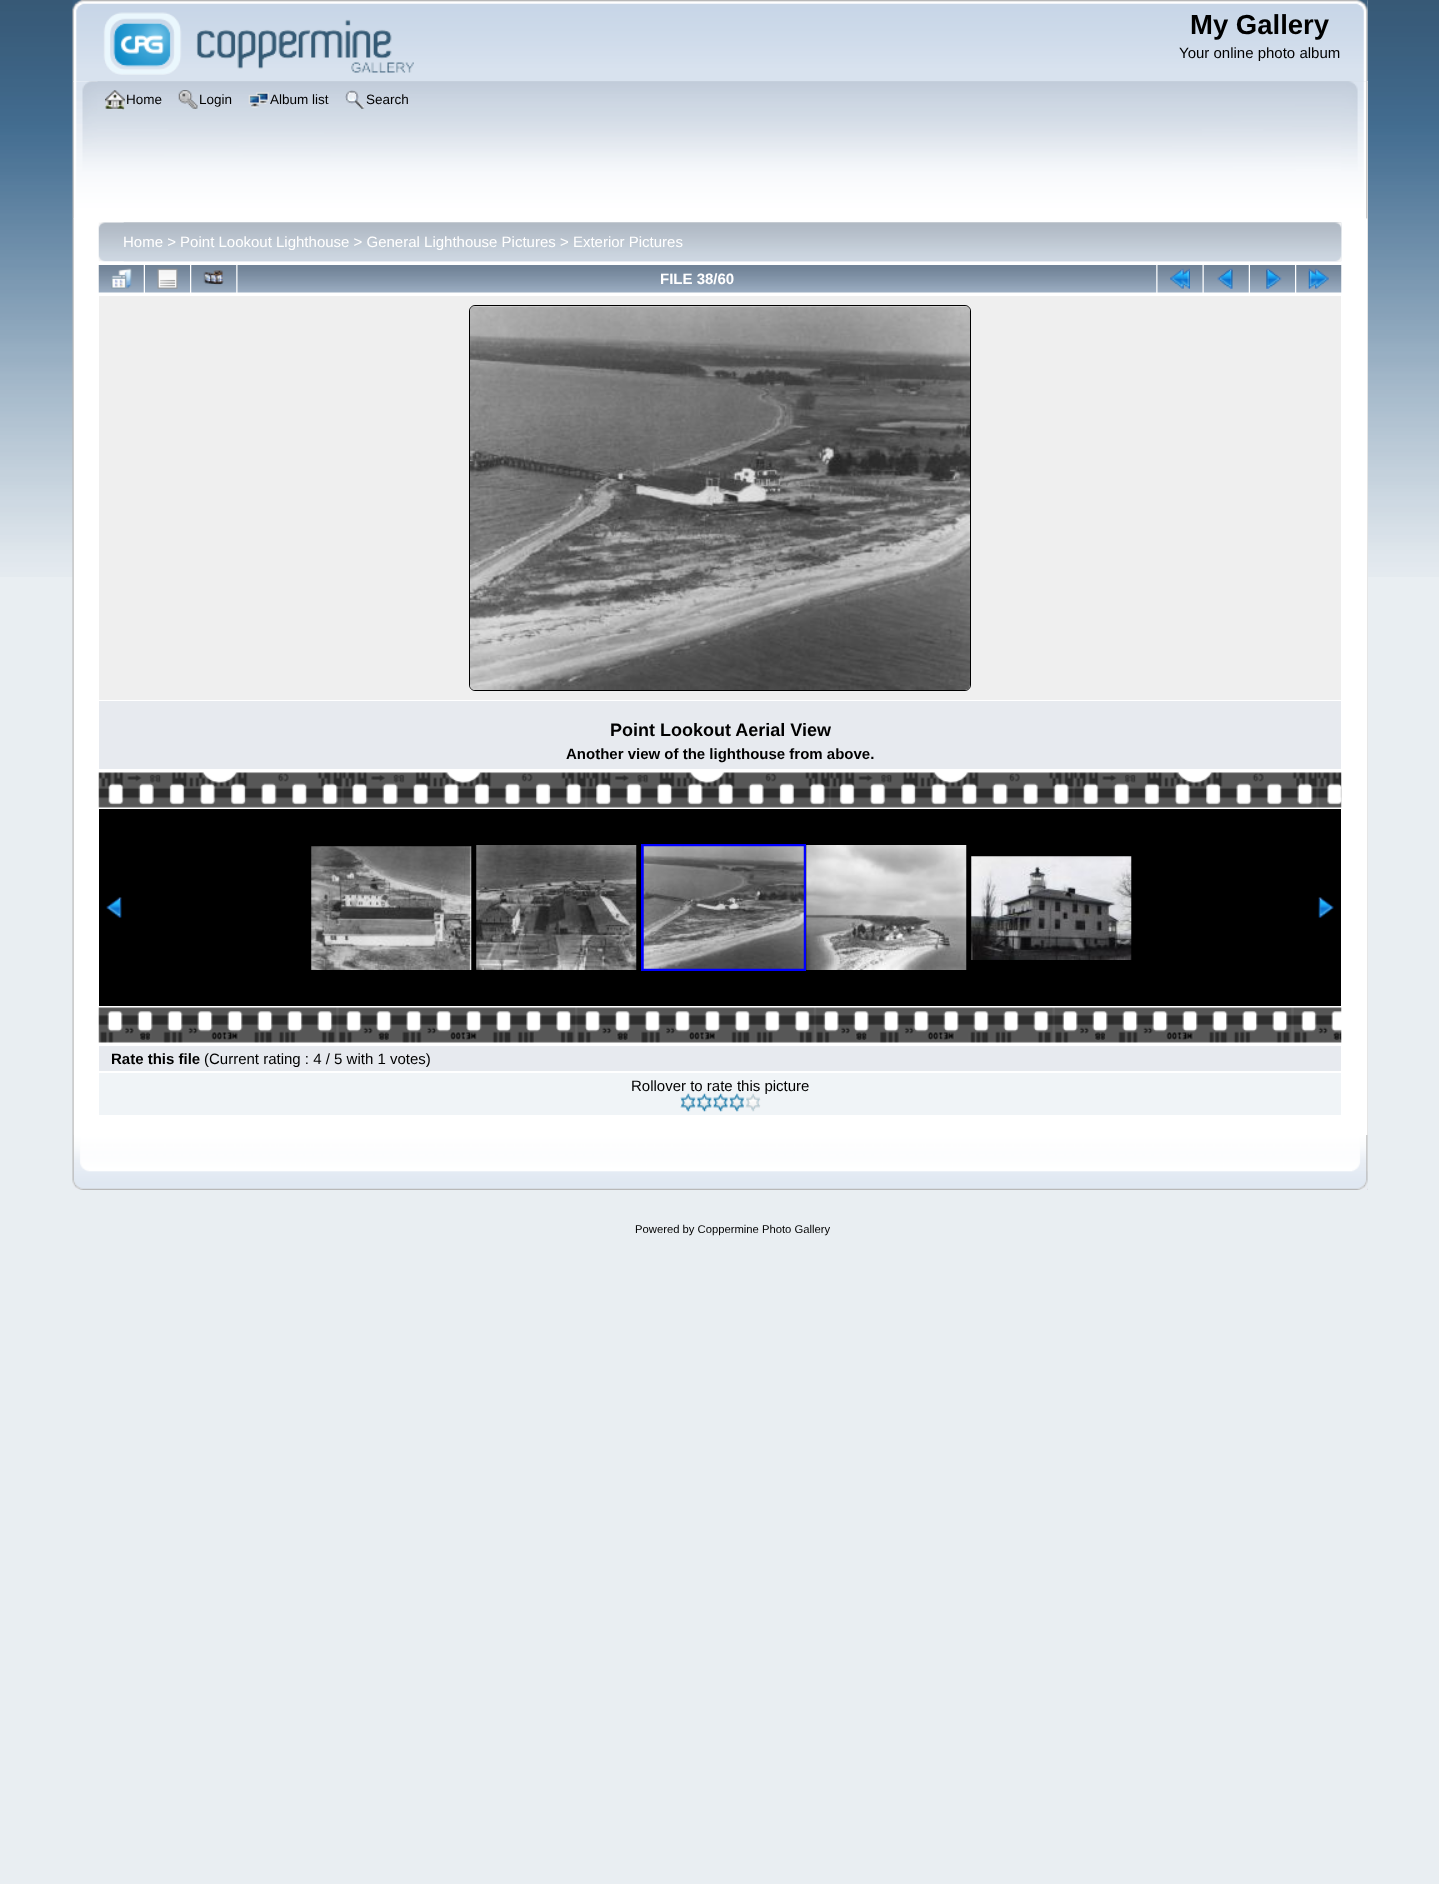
<svg xmlns="http://www.w3.org/2000/svg" width="1439" height="1884" viewBox="0 0 1439 1884">
  <rect width="100%" height="100%" fill="rgb(233,238,242)"/>
  <image x="0" y="0" width="1439" height="577" href="pic1.png"/>
  <image x="72" y="0" width="1296" height="82" href="pic2.png"/>
  <image x="97" y="0" width="1271" height="81" href="pic3.png"/>
  <image x="103" y="12" width="311" height="63" href="pic4.png"/>
  <text x="1190" y="34" font-family="Liberation Sans" font-size="27.5" font-weight="bold" fill="rgb(0,0,0)">My Gallery</text>
  <text x="1179" y="58" font-family="Liberation Sans" font-size="15" fill="rgb(0,0,0)">Your online photo album</text>
  <rect x="73" y="81" width="1295" height="138" fill="rgb(254,254,254)"/>
  <image x="72" y="81" width="1296" height="138" href="pic5.png"/>
  <image x="97" y="81" width="1271" height="138" href="pic6.png"/>
  <image x="105" y="90" width="20" height="20" href="pic7.png"/>
  <text x="126" y="104" font-family="Liberation Sans" font-size="13.5" fill="rgb(0,0,0)">Home</text>
  <image x="178" y="90" width="20" height="19" href="pic8.png"/>
  <text x="199" y="104" font-family="Liberation Sans" font-size="13.5" fill="rgb(0,0,0)">Login</text>
  <image x="248" y="92" width="21" height="16" href="pic9.png"/>
  <text x="270" y="104" font-family="Liberation Sans" font-size="13.5" fill="rgb(0,0,0)">Album list</text>
  <image x="345" y="90" width="20" height="19" href="pic10.png"/>
  <text x="366" y="104" font-family="Liberation Sans" font-size="13.5" fill="rgb(0,0,0)">Search</text>
  <rect x="1367" y="219" width="1" height="916" fill="rgb(255,255,255)"/>
  <image x="72" y="218" width="1295" height="917" href="pic11.png"/>
  <image x="1366" y="218" width="2" height="917" href="pic12.png"/>
  <image x="98" y="222" width="1244" height="40" href="pic13.png"/>
  <image x="123" y="222" width="1219" height="40" href="pic14.png"/>
  <text x="123" y="247" font-family="Liberation Sans" font-size="15" fill="rgb(255,255,255)">Home &gt; Point Lookout Lighthouse &gt; General Lighthouse Pictures &gt; Exterior Pictures</text>
  <image x="98" y="265" width="46" height="28" href="pic15.png"/>
  <image x="111" y="268" width="21" height="21" href="pic16.png"/>
  <image x="145" y="265" width="45" height="28" href="pic17.png"/>
  <image x="157" y="268" width="21" height="21" href="pic18.png"/>
  <image x="191" y="265" width="46" height="28" href="pic19.png"/>
  <image x="203" y="270" width="21" height="15" href="pic20.png"/>
  <image x="237" y="265" width="920" height="28" href="pic21.png"/>
  <text x="660" y="284" font-family="Liberation Sans" font-size="15" font-weight="bold" fill="rgb(255,255,255)">FILE 38/60</text>
  <image x="1157" y="265" width="46" height="28" href="pic22.png"/>
  <image x="1170" y="268" width="20" height="21" href="pic23.png"/>
  <image x="1203" y="265" width="46" height="28" href="pic15.png"/>
  <image x="1217" y="268" width="16" height="21" href="pic24.png"/>
  <image x="1250" y="265" width="45" height="28" href="pic17.png"/>
  <image x="1266" y="268" width="16" height="21" href="pic25.png"/>
  <image x="1296" y="265" width="46" height="28" href="pic19.png"/>
  <image x="1308" y="268" width="21" height="21" href="pic26.png"/>
  <rect x="99" y="296" width="1242" height="404" fill="rgb(239,239,239)"/>
  <rect x="469.5" y="305.5" width="501" height="385" rx="5.5" fill="none" stroke="rgb(0,0,0)"/>
  <image x="470" y="306" width="500" height="384" href="pic27.png"/>
  <rect x="99" y="701" width="1242" height="68" fill="rgb(231,234,239)"/>
  <text x="610" y="736" font-family="Liberation Sans" font-size="18" font-weight="bold" fill="rgb(0,0,0)">Point Lookout Aerial View</text>
  <text x="566" y="759" font-family="Liberation Sans" font-size="15" font-weight="bold" fill="rgb(0,0,0)">Another view of the lighthouse from above.</text>
  <image x="98" y="772" width="1244" height="36" href="pic28.png"/>
  <rect x="99" y="809" width="1242" height="197" fill="rgb(0,0,0)"/>
  <image x="106" y="897" width="16" height="21" href="pic29.png"/>
  <image x="311" y="846" width="161" height="124" href="pic30.png"/>
  <image x="476" y="845" width="161" height="125" href="pic31.png"/>
  <rect x="642.5" y="845.5" width="162" height="124" fill="none" stroke="rgb(0,0,255)" stroke-width="3"/>
  <image x="643" y="846" width="161" height="123" href="pic32.png"/>
  <image x="806" y="845" width="161" height="125" href="pic33.png"/>
  <image x="971" y="856" width="161" height="104" href="pic34.png"/>
  <image x="1318" y="897" width="16" height="21" href="pic35.png"/>
  <image x="98" y="1007" width="1244" height="36" href="pic36.png"/>
  <rect x="99" y="1046" width="1242" height="25" fill="rgb(231,234,239)"/>
  <text x="111" y="1064" font-family="Liberation Sans" font-size="15" font-weight="bold" fill="rgb(0,0,0)">Rate this file</text>
  <text x="204" y="1064" font-family="Liberation Sans" font-size="15" fill="rgb(0,0,0)">(Current rating : 4 / 5 with 1 votes)</text>
  <rect x="99" y="1073" width="1242" height="42" fill="rgb(240,244,247)"/>
  <text x="631" y="1091" font-family="Liberation Sans" font-size="15" fill="rgb(0,0,0)">Rollover to rate this picture</text>
  <image x="680" y="1093" width="16" height="19" href="pic37.png"/>
  <image x="696" y="1093" width="17" height="19" href="pic38.png"/>
  <image x="712" y="1093" width="17" height="19" href="pic39.png"/>
  <image x="728" y="1093" width="17" height="19" href="pic40.png"/>
  <image x="745" y="1093" width="16" height="19" href="pic41.png"/>
  <image x="72" y="1135" width="1296" height="55" href="pic42.png"/>
  <image x="1352" y="1135" width="16" height="55" href="pic43.png"/>
  <text x="635" y="1233" font-family="Liberation Sans" font-size="11.25" fill="rgb(0,0,0)">Powered by Coppermine Photo Gallery</text>
</svg>
